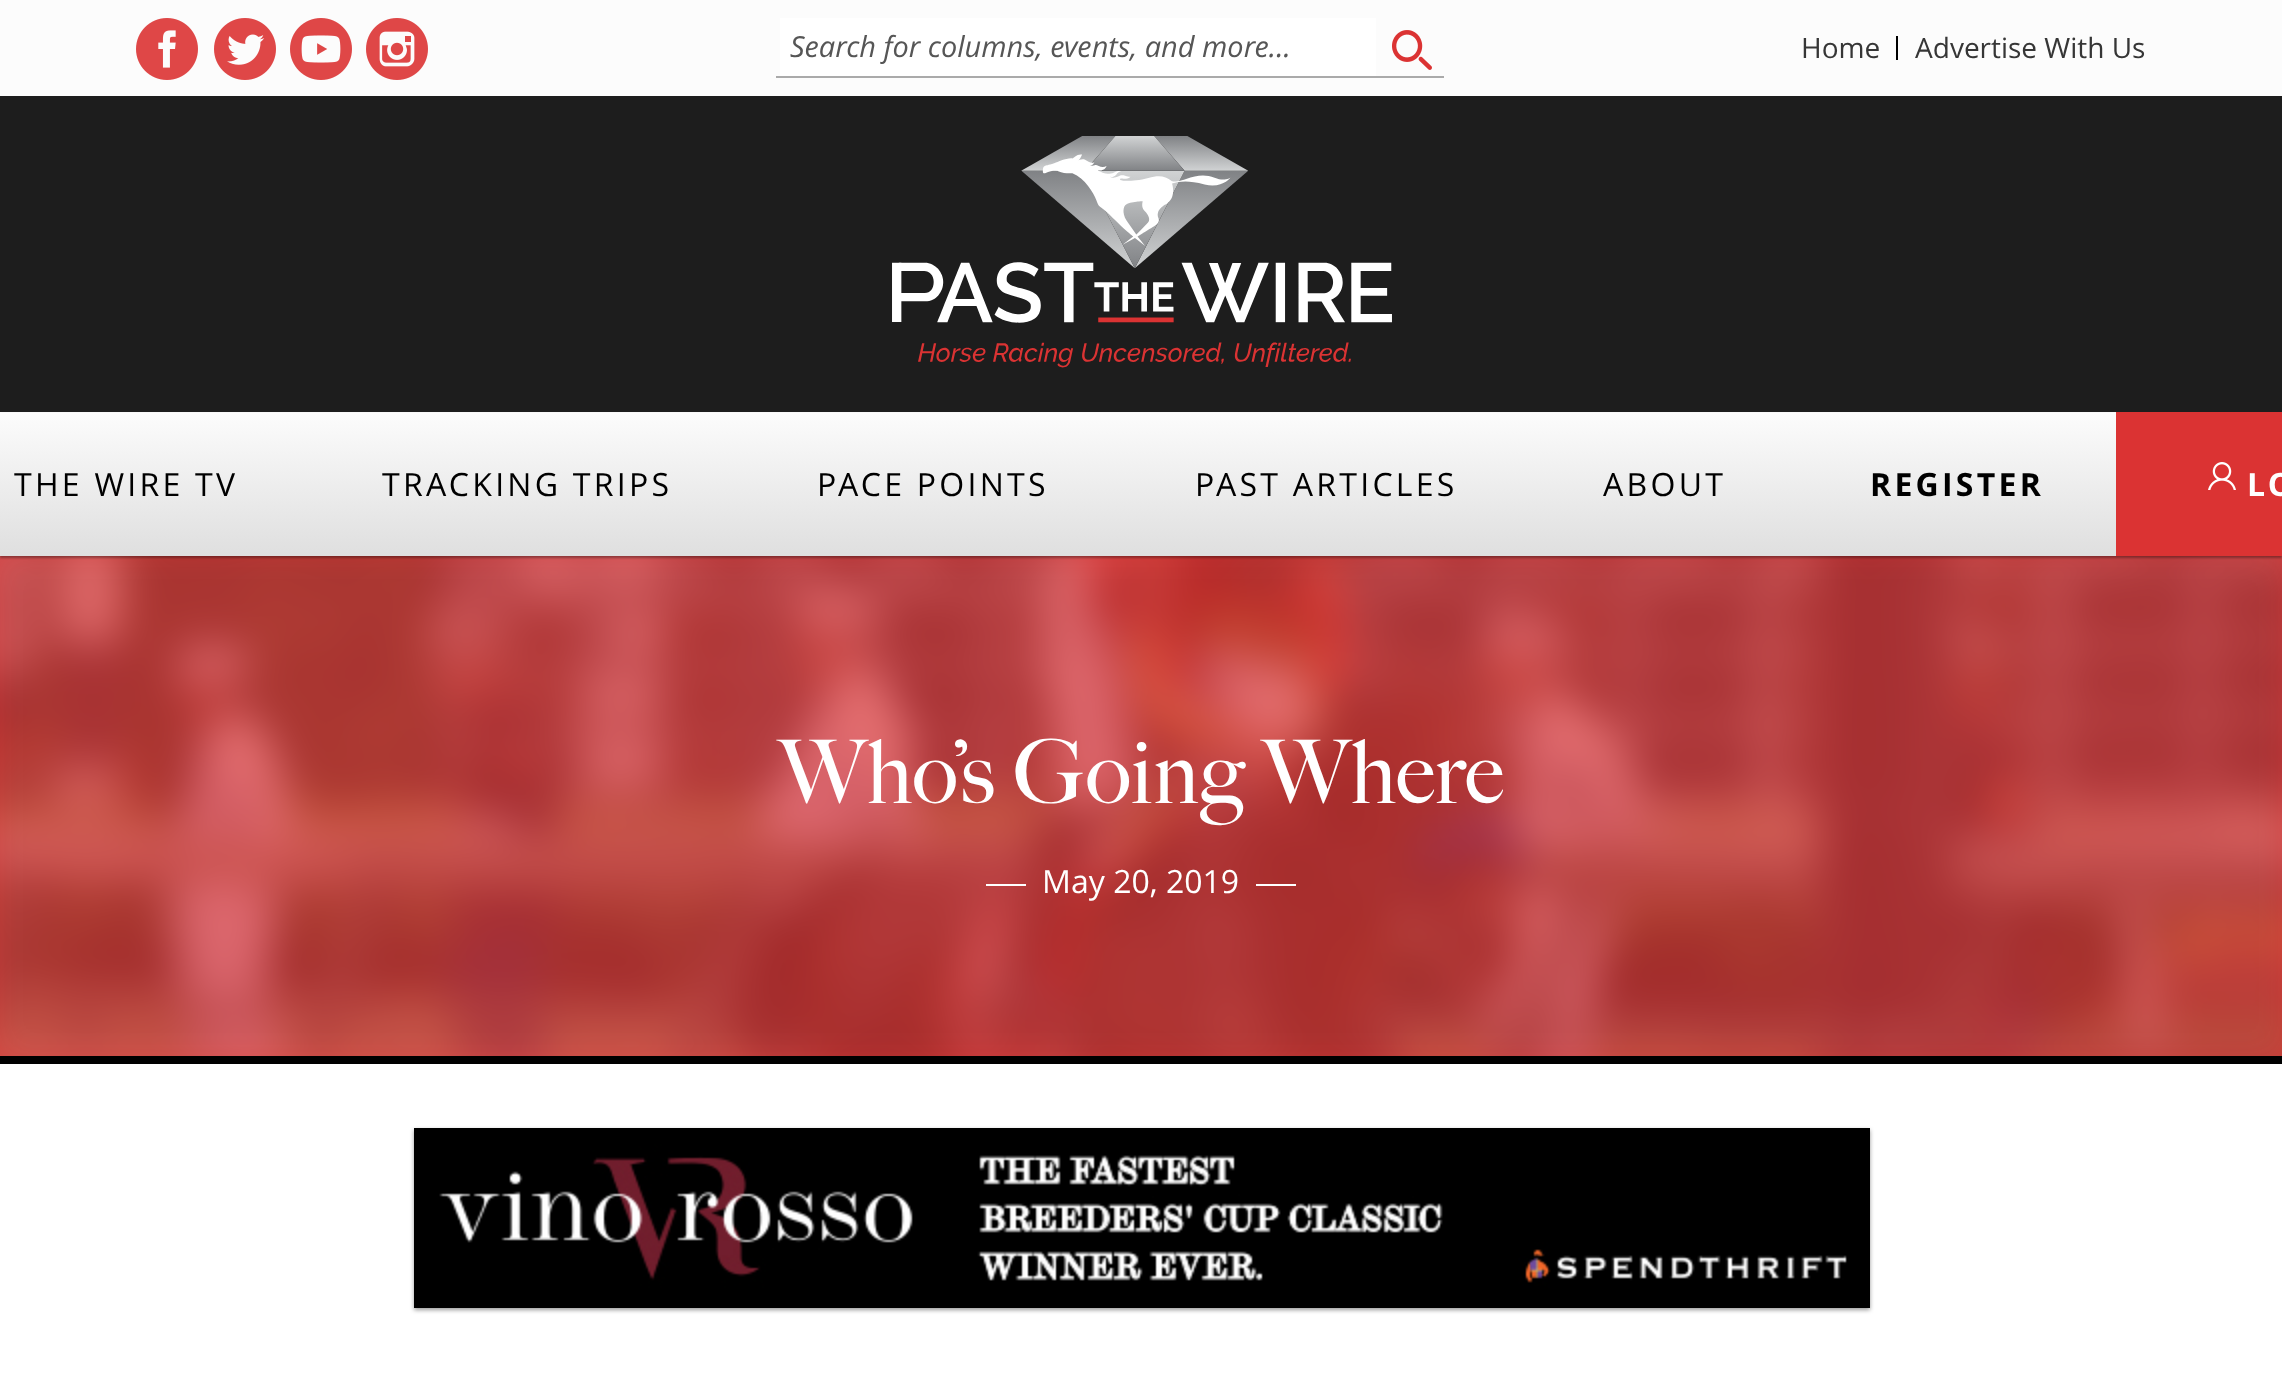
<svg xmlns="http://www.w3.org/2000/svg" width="2282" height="1382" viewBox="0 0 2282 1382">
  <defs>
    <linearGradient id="g1" gradientUnits="userSpaceOnUse" x1="1141" y1="412" x2="1141" y2="556"><stop offset="0" stop-color="rgb(252,252,252)"/><stop offset="1" stop-color="rgb(223,223,223)"/></linearGradient>
  </defs>
  <rect width="100%" height="100%" fill="rgb(255,255,255)"/>
  <rect x="0" y="0" width="2282" height="96" fill="rgb(252,252,252)"/>
  <image x="136" y="18" width="62" height="62" href="pic1.png"/>
  <image x="214" y="18" width="62" height="62" href="pic2.png"/>
  <image x="290" y="18" width="62" height="62" href="pic3.png"/>
  <image x="366" y="18" width="62" height="62" href="pic4.png"/>
  <rect x="776" y="76" width="668" height="2" fill="rgb(170,170,170)"/>
  <rect x="780" y="18" width="596" height="58" fill="rgb(255,255,255)"/>
  <text x="790" y="57" font-family="Open Sans" font-size="29" font-style="italic" fill="rgb(86,86,86)">Search for columns, events, and more...</text>
  <image x="1392" y="30" width="40" height="40" href="pic5.png"/>
  <text x="1801" y="58" font-family="Open Sans" font-size="28" fill="rgb(54,54,54)">Home</text>
  <rect x="1896" y="36" width="2" height="24" fill="rgb(0,0,0)"/>
  <text x="1915" y="58" font-family="Open Sans" font-size="28" fill="rgb(54,54,54)">Advertise With Us</text>
  <rect x="0" y="556" width="2282" height="500" fill="rgb(219,51,51)"/>
  <image x="0" y="556" width="2282" height="500" href="pic8.png"/>
  <rect x="0" y="414" width="2282" height="144" fill="rgba(0,0,0,0.32)" filter="blur(1px)"/>
  <rect x="0" y="96" width="2282" height="316" fill="rgb(29,29,29)"/>
  <image x="892" y="136" width="500" height="232" href="pic6.png"/>
  <rect x="0" y="413" width="2116" height="143" fill="url(#g1)"/>
  <g font-family="Open Sans" font-size="32" letter-spacing="3.25" fill="rgb(0,0,0)">
    <text x="14" y="496">THE WIRE TV</text>
    <text x="382" y="496">TRACKING TRIPS</text>
    <text x="817" y="496">PACE POINTS</text>
    <text x="1195" y="496">PAST ARTICLES</text>
    <text x="1603" y="496">ABOUT</text>
  </g>
  <text x="1870" y="496" font-family="Open Sans" font-size="32" font-weight="bold" letter-spacing="3.25" fill="rgb(0,0,0)">REGISTER</text>
  <rect x="2116" y="412" width="166" height="144" fill="rgb(219,51,51)"/>
  <image x="2208" y="462" width="28" height="28" href="pic7.png"/>
  <text x="2247" y="496" font-family="Open Sans" font-size="32" font-weight="bold" letter-spacing="3.25" fill="rgb(255,255,255)">LO</text>
  <rect x="0" y="1056" width="2282" height="8" fill="rgb(0,0,0)"/>
  <text x="779" y="803" font-family="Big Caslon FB" font-size="88" fill="rgb(255,255,255)">Who’s Going Where</text>
  <rect x="986" y="884" width="40" height="2" fill="rgb(255,255,255)"/>
  <text x="1042" y="893" font-family="Open Sans" font-size="32" fill="rgb(255,255,255)">May 20, 2019</text>
  <rect x="1256" y="884" width="40" height="2" fill="rgb(255,255,255)"/>
  <rect x="414" y="1130" width="1456" height="180" fill="rgba(0,0,0,0.4)" filter="blur(2px)"/>
  <image x="414" y="1128" width="1456" height="180" href="pic9.png"/>
</svg>
